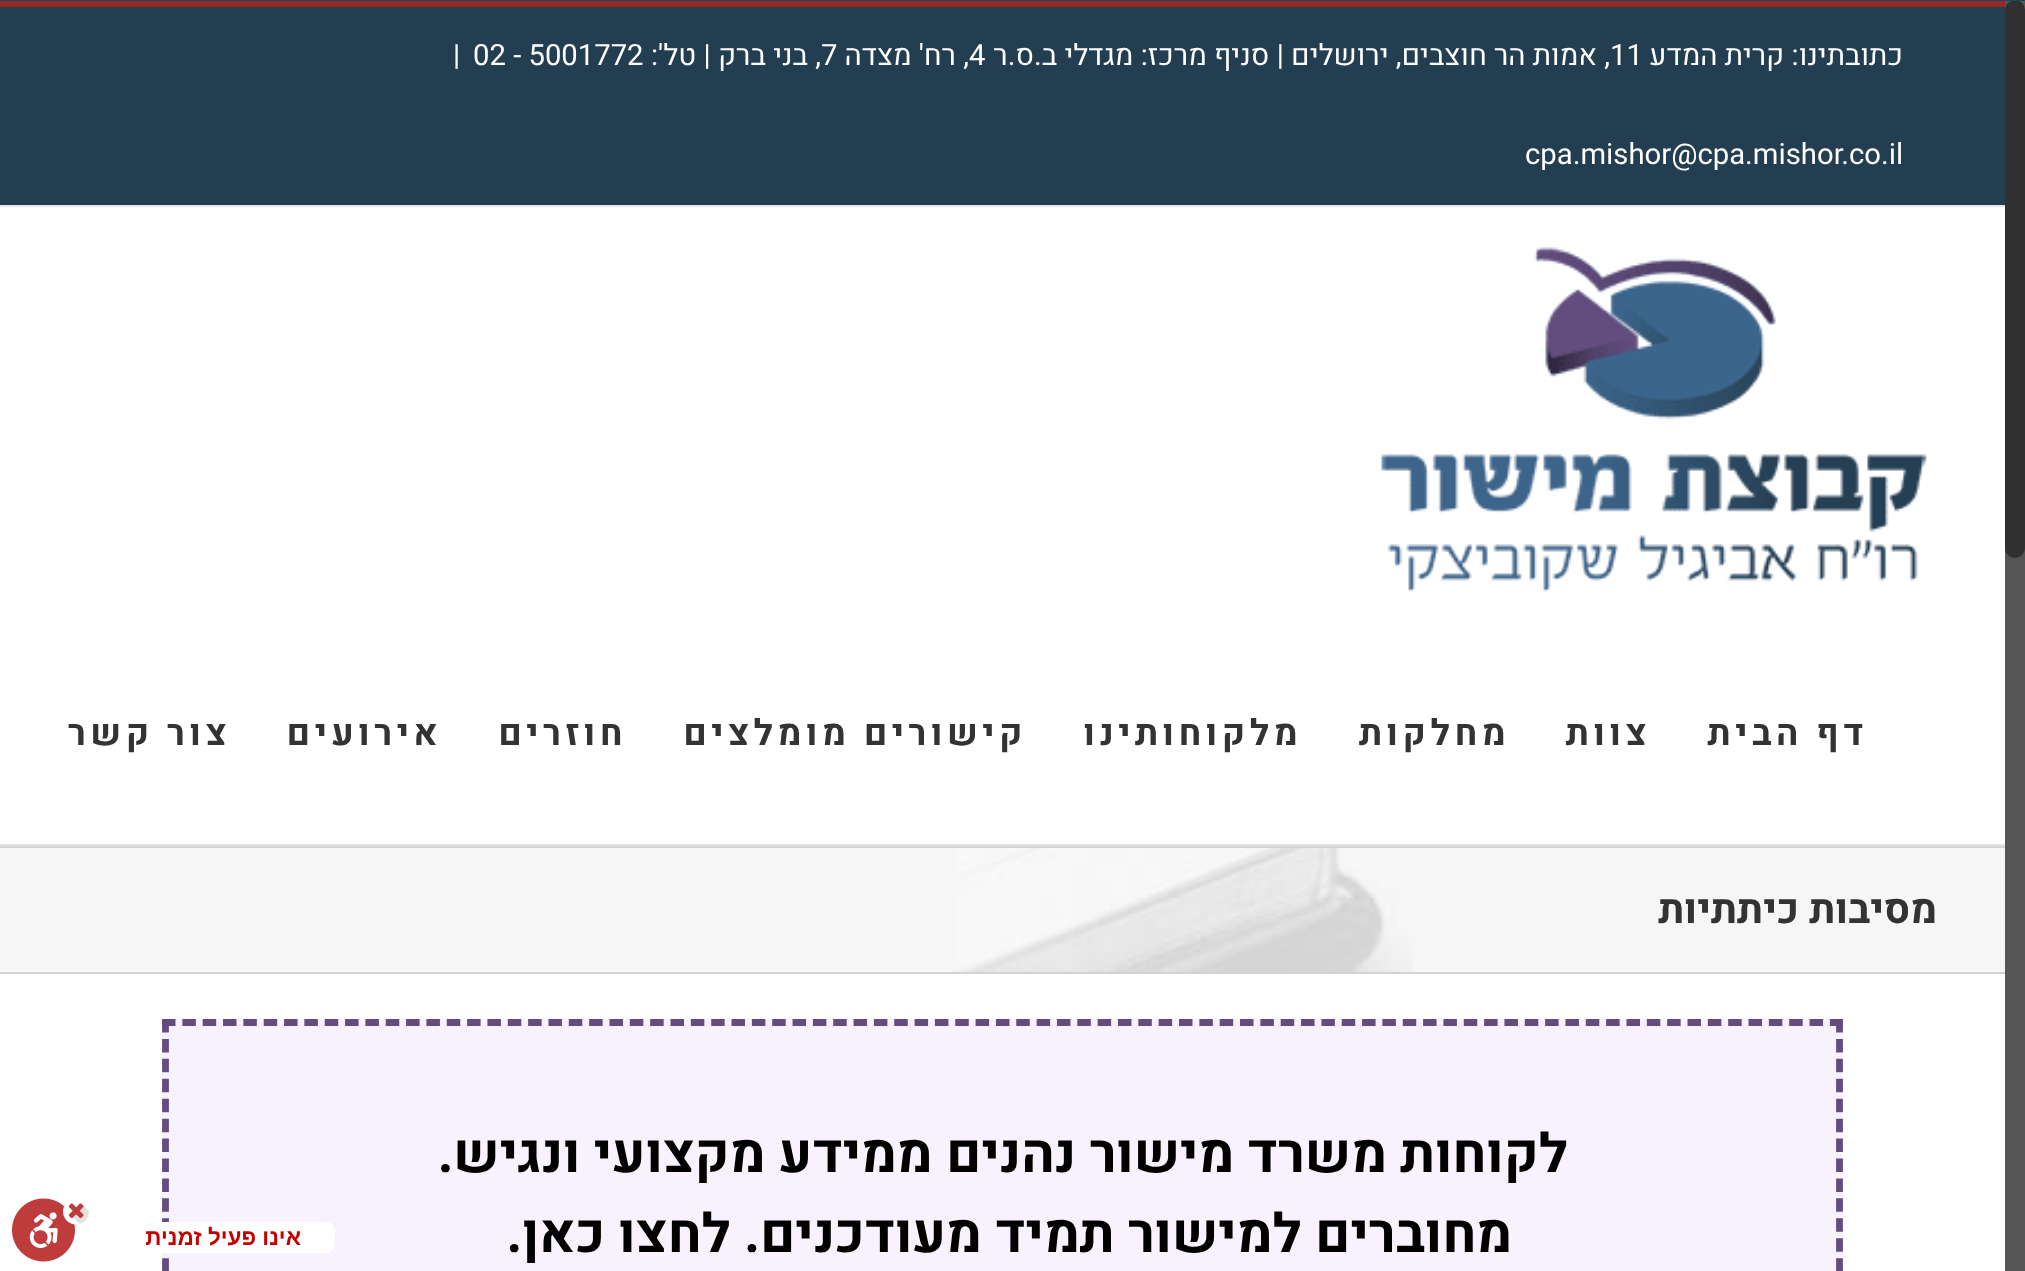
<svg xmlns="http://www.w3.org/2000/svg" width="2025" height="1271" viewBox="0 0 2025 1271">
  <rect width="100%" height="100%" fill="rgb(255,255,255)"/>
  <rect x="2005" y="1" width="20" height="1270" fill="rgb(85,85,85)"/>
  <rect x="2005" y="0" width="20" height="558" rx="10" fill="rgb(48,48,48)"/>
  <rect x="0" y="7" width="2005" height="198" fill="rgb(35,61,81)"/>
  <rect x="0" y="1" width="2005" height="6" fill="rgb(150,40,40)"/>
  <rect x="0" y="205" width="2005" height="2" fill="rgb(229,229,229)"/>
  <text x="1903" y="65" font-family="Heebo" font-size="29.25" direction="rtl" fill="rgb(255,255,255)">כתובתינו: קרית המדע</text>
  <text x="1610" y="65" font-family="Heebo" font-size="29.25" fill="rgb(255,255,255)">11</text>
  <text x="1610" y="65" font-family="Heebo" font-size="29.25" direction="rtl" fill="rgb(255,255,255)">, אמות הר חוצבים, ירושלים | סניף מרכז: מגדלי ב.ס.ר</text>
  <text x="969" y="65" font-family="Heebo" font-size="29.25" fill="rgb(255,255,255)">4</text>
  <text x="969" y="65" font-family="Heebo" font-size="29.25" direction="rtl" fill="rgb(255,255,255)">, רח' מצדה</text>
  <text x="821" y="65" font-family="Heebo" font-size="29.25" fill="rgb(255,255,255)">7</text>
  <text x="821" y="65" font-family="Heebo" font-size="29.25" direction="rtl" fill="rgb(255,255,255)">, בני ברק | טל':</text>
  <g font-family="Heebo" font-size="29.25" fill="rgb(255,255,255)">
    <text x="473" y="65">02 - 5001772</text>
    <text x="453" y="65">|</text>
    <text x="1525" y="164">cpa.mishor@cpa.mishor.co.il</text>
  </g>
  <rect x="0" y="844" width="2005" height="2" fill="rgb(229,229,229)"/>
  <image x="1381" y="247" width="546" height="346" href="pic1.png"/>
  <g font-family="Heebo" font-size="36" font-weight="bold" letter-spacing="4.5" direction="rtl" fill="rgb(51,51,51)">
    <text x="1868" y="745">דף הבית</text>
    <text x="1651" y="745">צוות</text>
    <text x="1510" y="745">מחלקות</text>
    <text x="1302" y="745">מלקוחותינו</text>
    <text x="1027" y="745">קישורים מומלצים</text>
    <text x="627" y="745">חוזרים</text>
    <text x="442" y="745">אירועים</text>
    <text x="231" y="745">צור קשר</text>
  </g>
  <rect x="0" y="848" width="2005" height="124" fill="rgb(246,246,246)"/>
  <image x="955" y="848" width="458" height="124" href="pic2.png"/>
  <rect x="0" y="846" width="2005" height="2" fill="rgb(210,211,212)"/>
  <rect x="0" y="972" width="2005" height="2" fill="rgb(210,211,212)"/>
  <text x="1937" y="923" font-family="Heebo" font-size="40.5" font-weight="bold" direction="rtl" fill="rgb(51,51,51)">מסיבות כיתתיות</text>
  <rect x="162" y="1019" width="1681" height="252" fill="rgb(248,242,255)"/>
  <path d="M162 1022.5H1843" fill="none" stroke="rgb(99,77,127)" stroke-width="6.8" stroke-dasharray="13.5 6.84"/>
  <path d="M1839.5 1019V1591" fill="none" stroke="rgb(99,77,127)" stroke-width="6.8" stroke-dasharray="13.5 6.43"/>
  <path d="M165.5 1019V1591" fill="none" stroke="rgb(99,77,127)" stroke-width="6.8" stroke-dasharray="13.5 6.43"/>
  <g font-family="Heebo" font-size="54" font-weight="bold" direction="rtl" fill="rgb(0,0,0)">
    <text x="1568" y="1172">לקוחות משרד מישור נהנים ממידע מקצועי ונגיש.</text>
    <text x="1512" y="1252">מחוברים למישור תמיד מעודכנים. לחצו כאן.</text>
  </g>
  <rect x="0" y="0" width="2025" height="1" fill="rgb(21,73,95)"/>
  <rect x="110" y="1222" width="225" height="31" rx="9" fill="rgb(255,255,255)"/>
  <text x="301" y="1245" font-family="Liberation Sans" font-size="22.5" font-weight="bold" direction="rtl" fill="rgb(194,0,0)">אינו פעיל זמנית</text>
  <image x="12" y="1198" width="77" height="64" href="pic3.png"/>
</svg>
